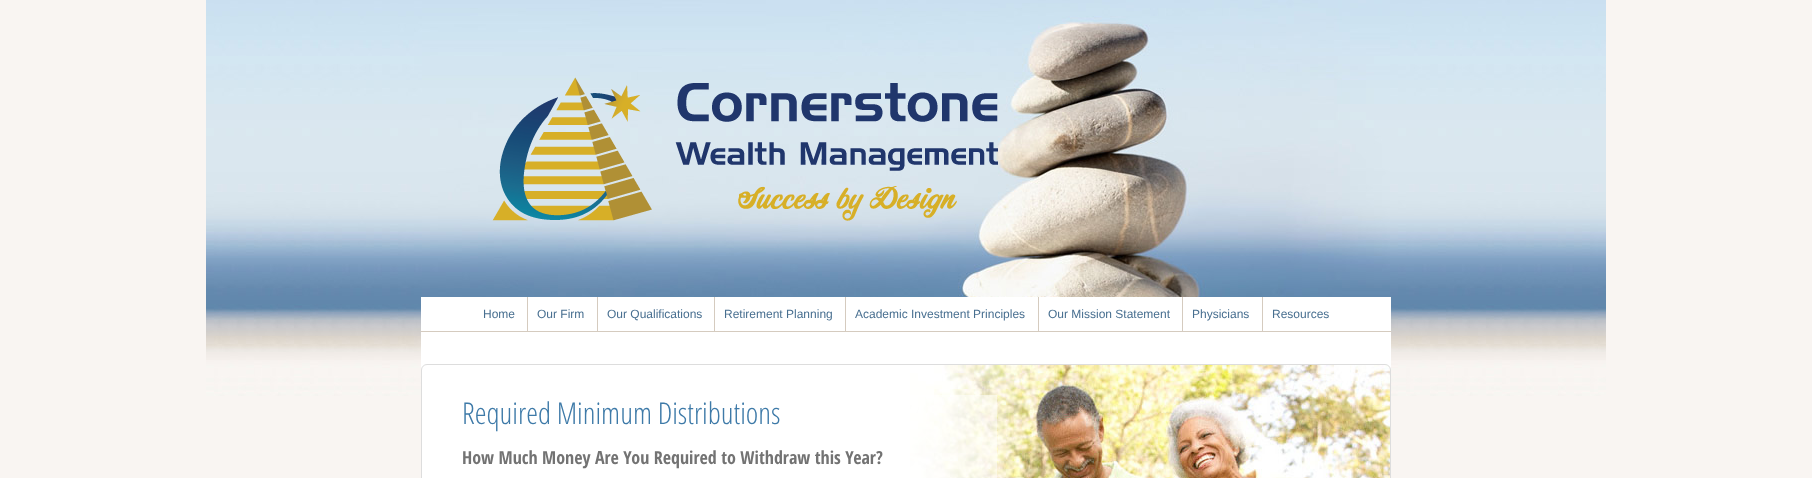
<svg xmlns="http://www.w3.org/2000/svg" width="1812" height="478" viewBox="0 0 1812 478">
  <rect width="100%" height="100%" fill="rgb(249,245,242)"/>
  <image x="206" y="0" width="1400" height="396" href="pic1.png"/>
  <image x="492" y="77" width="506" height="144" href="pic2.png"/>
  <rect x="421" y="297" width="970" height="34" fill="rgb(255,255,255)"/>
  <rect x="421" y="331" width="970" height="1" fill="rgb(213,203,191)"/>
  <text x="483" y="318" font-family="Liberation Sans" font-size="12" fill="rgb(72,111,144)">Home</text>
  <rect x="527" y="297" width="1" height="34" fill="rgb(213,203,191)"/>
  <text x="537" y="318" font-family="Liberation Sans" font-size="12" fill="rgb(72,111,144)">Our Firm</text>
  <rect x="597" y="297" width="1" height="34" fill="rgb(213,203,191)"/>
  <text x="607" y="318" font-family="Liberation Sans" font-size="12" fill="rgb(72,111,144)">Our Qualifications</text>
  <rect x="714" y="297" width="1" height="34" fill="rgb(213,203,191)"/>
  <text x="724" y="318" font-family="Liberation Sans" font-size="12" fill="rgb(72,111,144)">Retirement Planning</text>
  <rect x="845" y="297" width="1" height="34" fill="rgb(213,203,191)"/>
  <text x="855" y="318" font-family="Liberation Sans" font-size="12" fill="rgb(72,111,144)">Academic Investment Principles</text>
  <rect x="1038" y="297" width="1" height="34" fill="rgb(213,203,191)"/>
  <text x="1048" y="318" font-family="Liberation Sans" font-size="12" fill="rgb(72,111,144)">Our Mission Statement</text>
  <rect x="1182" y="297" width="1" height="34" fill="rgb(213,203,191)"/>
  <text x="1192" y="318" font-family="Liberation Sans" font-size="12" fill="rgb(72,111,144)">Physicians</text>
  <rect x="1262" y="297" width="1" height="34" fill="rgb(213,203,191)"/>
  <text x="1272" y="318" font-family="Liberation Sans" font-size="12" fill="rgb(72,111,144)">Resources</text>
  <rect x="421" y="332" width="970" height="146" fill="rgb(255,255,255)"/>
  <image x="910" y="365" width="480" height="113" href="pic3.png"/>
  <rect x="421.5" y="364.5" width="969" height="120" rx="5.5" fill="none" stroke="rgb(221,221,221)"/>
  <rect x="910" y="395" width="87" height="83" fill="rgba(255,255,255,0.5)"/>
  <text x="462" y="424" font-family="Open Sans Condensed" font-size="30" font-weight="300" fill="rgb(62,122,168)">Required Minimum Distributions</text>
  <text x="462" y="464" font-family="Open Sans Condensed" font-size="18" font-weight="bold" fill="rgb(115,115,115)">How Much Money Are You Required to Withdraw this Year?</text>
</svg>
